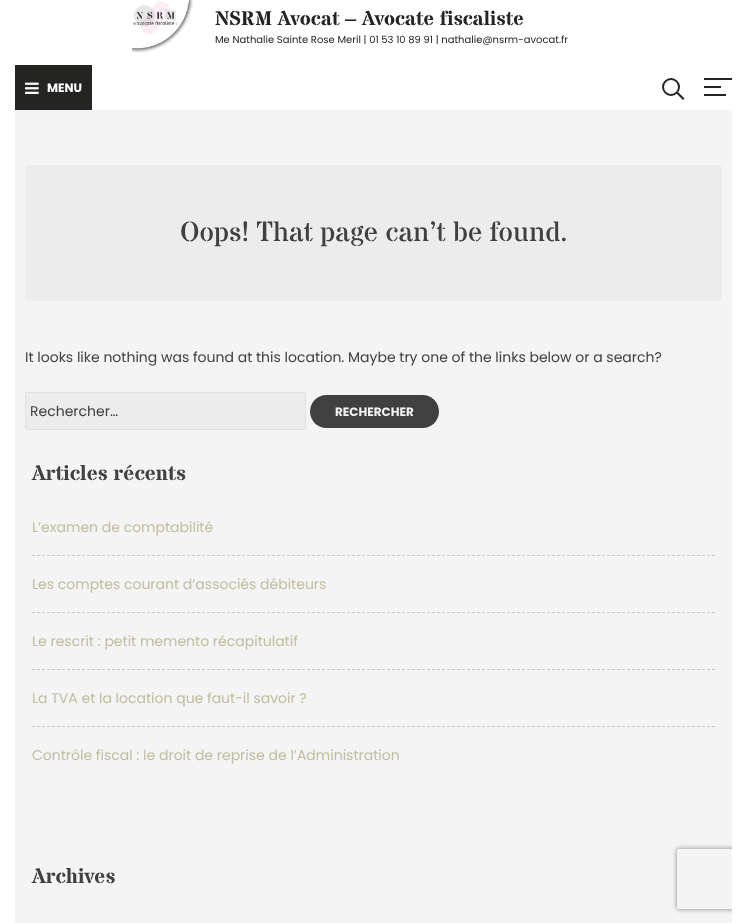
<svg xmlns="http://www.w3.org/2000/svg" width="747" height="923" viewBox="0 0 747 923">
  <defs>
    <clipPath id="clip1"><path d="M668 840H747V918H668ZM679 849H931C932 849 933 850 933 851V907C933 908 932 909 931 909H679C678 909 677 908 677 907V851C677 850 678 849 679 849Z" clip-rule="evenodd"/></clipPath>
  </defs>
  <rect width="100%" height="100%" fill="rgb(244,244,244)"/>
  <rect x="0" y="110" width="15" height="813" fill="rgb(255,255,255)"/>
  <rect x="0" y="0" width="747" height="110" fill="rgb(255,255,255)"/>
  <image x="132" y="0" width="61" height="53" href="pic1.png"/>
  <text x="215" y="25" font-family="Stardos Stencil" font-size="20" font-weight="bold" fill="rgb(36,36,35)">NSRM Avocat – Avocate fiscaliste</text>
  <text x="215" y="43" font-family="Poppins" font-size="10" fill="rgb(36,36,35)">Me Nathalie Sainte Rose Meril | 01 53 10 89 91 | nathalie@nsrm-avocat.fr</text>
  <rect x="15" y="65" width="77" height="45" fill="rgb(36,36,35)"/>
  <image x="25" y="82" width="14" height="12" href="pic2.png"/>
  <text x="47" y="92" font-family="Poppins" font-size="12" font-weight="bold" fill="rgb(255,255,255)">MENU</text>
  <circle cx="671" cy="87" r="8" fill="none" stroke="rgb(36,36,35)" stroke-width="2"/>
  <path d="M678 92L684.5 98.5L683 100L676.5 93.5Z" fill="rgb(36,36,35)"/>
  <rect x="704" y="78" width="28" height="2" fill="rgb(36,36,35)"/>
  <rect x="704" y="86" width="17" height="2" fill="rgb(36,36,35)"/>
  <rect x="704" y="94" width="22" height="2" fill="rgb(36,36,35)"/>
  <rect x="25" y="165" width="697" height="136" rx="4" fill="rgb(236,236,236)"/>
  <text x="180" y="241" font-family="Stardos Stencil" font-size="28" fill="rgb(64,64,64)">Oops! That page can’t be found.</text>
  <text x="25" y="362" font-family="Poppins" font-size="14" fill="rgb(64,64,64)">It looks like nothing was found at this location. Maybe try one of the links below or a search?</text>
  <rect x="25" y="392" width="281" height="38" rx="4" fill="rgb(236,236,236)"/>
  <rect x="25.5" y="392.5" width="280" height="37" fill="none" stroke="rgba(0,0,0,0.05)"/>
  <text x="30" y="416" font-family="Poppins" font-size="14" fill="rgb(64,64,64)">Rechercher…</text>
  <rect x="310" y="395" width="129" height="33" rx="16.5" fill="rgb(64,64,64)"/>
  <text x="335" y="416" font-family="Poppins" font-size="12" font-weight="bold" fill="rgb(244,244,244)">RECHERCHER</text>
  <text x="32" y="480" font-family="Stardos Stencil" font-size="21" font-weight="bold" fill="rgb(64,64,64)">Articles récents</text>
  <path d="M32 555.5H715" fill="none" stroke="rgb(201,201,201)" stroke-dasharray="3 2"/>
  <text x="32" y="532" font-family="Poppins" font-size="14" fill="rgb(193,189,158)">L’examen de comptabilité</text>
  <path d="M32 612.5H715" fill="none" stroke="rgb(201,201,201)" stroke-dasharray="3 2"/>
  <text x="32" y="589" font-family="Poppins" font-size="14" fill="rgb(193,189,158)">Les comptes courant d’associés débiteurs</text>
  <path d="M32 669.5H715" fill="none" stroke="rgb(201,201,201)" stroke-dasharray="3 2"/>
  <text x="32" y="646" font-family="Poppins" font-size="14" fill="rgb(193,189,158)">Le rescrit : petit memento récapitulatif</text>
  <path d="M32 726.5H715" fill="none" stroke="rgb(201,201,201)" stroke-dasharray="3 2"/>
  <g font-family="Poppins" font-size="14" fill="rgb(193,189,158)">
    <text x="32" y="703">La TVA et la location que faut-il savoir ?</text>
    <text x="32" y="760">Contrôle fiscal : le droit de reprise de l’Administration</text>
  </g>
  <text x="32" y="883" font-family="Stardos Stencil" font-size="21" font-weight="bold" fill="rgb(64,64,64)">Archives</text>
  <g clip-path="url(#clip1)">
    <rect x="677" y="849" width="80" height="60" rx="2" fill="rgb(128,128,128)" filter="blur(2.5px)"/>
  </g>
  <rect x="732" y="110" width="15" height="813" fill="rgb(255,255,255)"/>
</svg>
